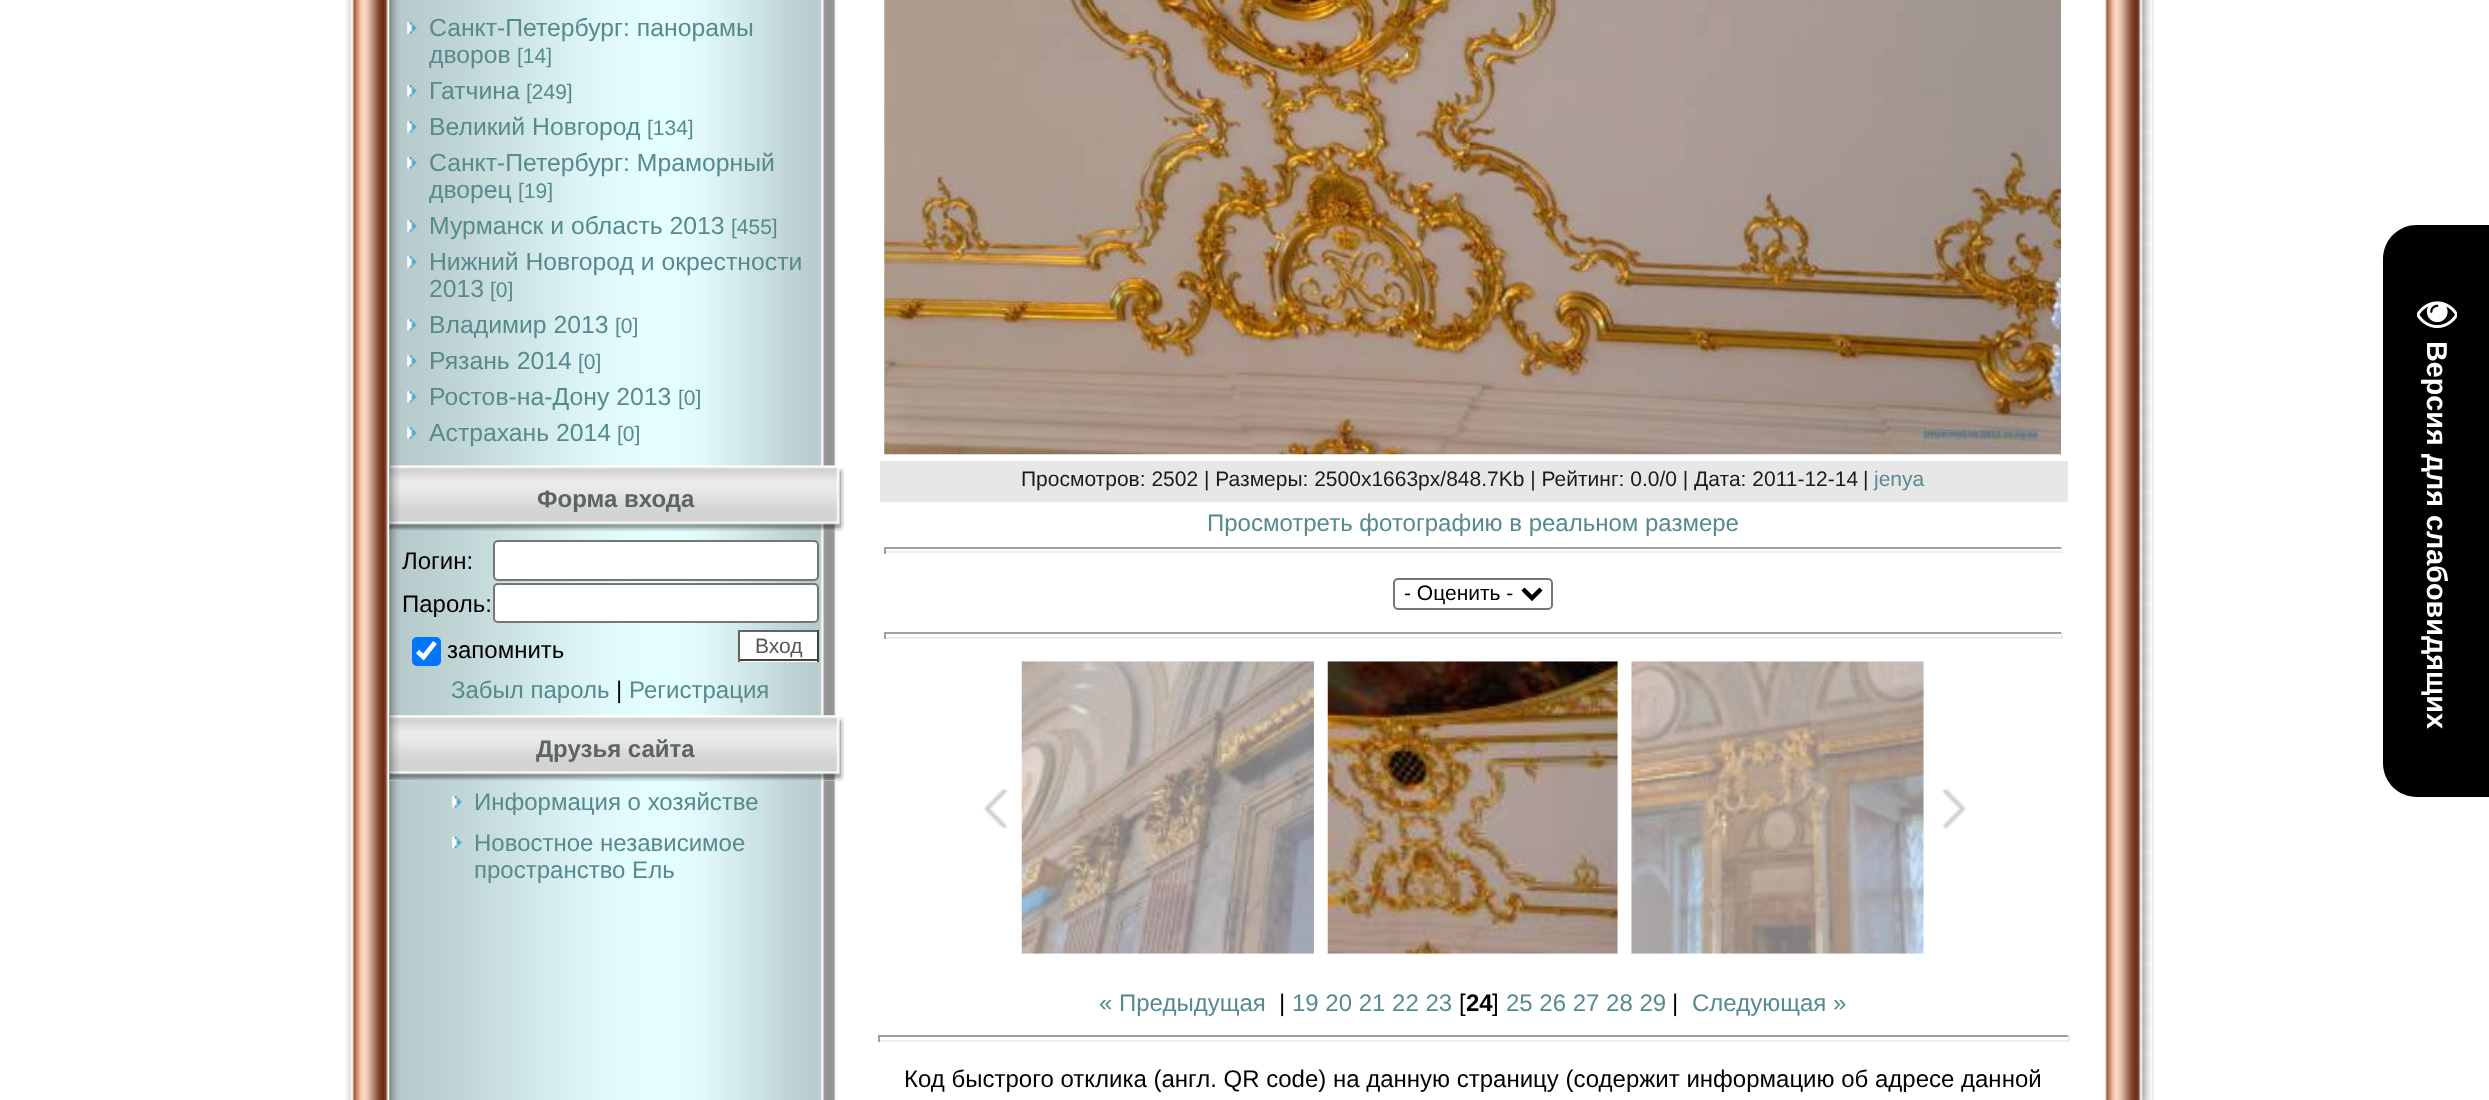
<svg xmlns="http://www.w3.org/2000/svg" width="2489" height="1100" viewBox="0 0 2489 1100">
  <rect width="100%" height="100%" fill="rgb(255,255,255)"/>
  <image x="345" y="0" width="43" height="1100" href="pic1.png"/>
  <image x="389" y="0" width="455" height="1100" href="pic2.png"/>
  <image x="407" y="22" width="10" height="12" href="pic3.png"/>
  <g font-family="Liberation Sans" font-size="24.75" fill="rgb(87,138,141)">
    <text>
      <tspan x="429" y="36">Санкт-Петербург: панорамы</tspan>
      <tspan x="429" y="63">дворов</tspan>
    </text>
  </g>
  <text x="517" y="63" font-family="Liberation Sans" font-size="21" fill="rgb(87,138,141)">[14]</text>
  <image x="407" y="85" width="10" height="12" href="pic3.png"/>
  <text x="429" y="99" font-family="Liberation Sans" font-size="24.75" fill="rgb(87,138,141)">Гатчина</text>
  <text x="526" y="99" font-family="Liberation Sans" font-size="21" fill="rgb(87,138,141)">[249]</text>
  <image x="407" y="121" width="10" height="12" href="pic3.png"/>
  <text x="429" y="135" font-family="Liberation Sans" font-size="24.75" fill="rgb(87,138,141)">Великий Новгород</text>
  <text x="647" y="135" font-family="Liberation Sans" font-size="21" fill="rgb(87,138,141)">[134]</text>
  <image x="407" y="157" width="10" height="12" href="pic3.png"/>
  <g font-family="Liberation Sans" font-size="24.75" fill="rgb(87,138,141)">
    <text>
      <tspan x="429" y="171">Санкт-Петербург: Мраморный</tspan>
      <tspan x="429" y="198">дворец</tspan>
    </text>
  </g>
  <text x="518" y="198" font-family="Liberation Sans" font-size="21" fill="rgb(87,138,141)">[19]</text>
  <image x="407" y="220" width="10" height="12" href="pic3.png"/>
  <text x="429" y="234" font-family="Liberation Sans" font-size="24.75" fill="rgb(87,138,141)">Мурманск и область 2013</text>
  <text x="731" y="234" font-family="Liberation Sans" font-size="21" fill="rgb(87,138,141)">[455]</text>
  <image x="407" y="256" width="10" height="12" href="pic3.png"/>
  <g font-family="Liberation Sans" font-size="24.75" fill="rgb(87,138,141)">
    <text>
      <tspan x="429" y="270">Нижний Новгород и окрестности</tspan>
      <tspan x="429" y="297">2013</tspan>
    </text>
  </g>
  <text x="490" y="297" font-family="Liberation Sans" font-size="21" fill="rgb(87,138,141)">[0]</text>
  <image x="407" y="319" width="10" height="12" href="pic3.png"/>
  <text x="429" y="333" font-family="Liberation Sans" font-size="24.75" fill="rgb(87,138,141)">Владимир 2013</text>
  <text x="615" y="333" font-family="Liberation Sans" font-size="21" fill="rgb(87,138,141)">[0]</text>
  <image x="407" y="355" width="10" height="12" href="pic3.png"/>
  <text x="429" y="369" font-family="Liberation Sans" font-size="24.75" fill="rgb(87,138,141)">Рязань 2014</text>
  <text x="578" y="369" font-family="Liberation Sans" font-size="21" fill="rgb(87,138,141)">[0]</text>
  <image x="407" y="391" width="10" height="12" href="pic3.png"/>
  <text x="429" y="405" font-family="Liberation Sans" font-size="24.75" fill="rgb(87,138,141)">Ростов-на-Дону 2013</text>
  <text x="678" y="405" font-family="Liberation Sans" font-size="21" fill="rgb(87,138,141)">[0]</text>
  <image x="407" y="427" width="10" height="12" href="pic3.png"/>
  <text x="429" y="441" font-family="Liberation Sans" font-size="24.75" fill="rgb(87,138,141)">Астрахань 2014</text>
  <text x="617" y="441" font-family="Liberation Sans" font-size="21" fill="rgb(87,138,141)">[0]</text>
  <rect x="389" y="466" width="455" height="65" fill="rgb(227,227,227)"/>
  <image x="389" y="465" width="455" height="66" href="pic4.png"/>
  <text x="537" y="507" font-family="Liberation Sans" font-size="24" font-weight="bold" fill="rgb(91,101,102)">Форма входа</text>
  <text x="402" y="569" font-family="Liberation Sans" font-size="24" fill="rgb(0,0,0)">Логин:</text>
  <rect x="494" y="541" width="324" height="39" rx="4" fill="rgb(255,255,255)" stroke="rgb(118,118,118)" stroke-width="2"/>
  <text x="402" y="612" font-family="Liberation Sans" font-size="24" fill="rgb(0,0,0)">Пароль:</text>
  <rect x="494" y="584" width="324" height="38" rx="4" fill="rgb(255,255,255)" stroke="rgb(118,118,118)" stroke-width="2"/>
  <rect x="412" y="637" width="29" height="29" rx="5" fill="rgb(0,117,255)"/>
  <path d="M417.5 651.5L423.5 657L435 642.5" fill="none" stroke="rgb(255,255,255)" stroke-width="4.7"/>
  <text x="447" y="658" font-family="Liberation Sans" font-size="24" fill="rgb(0,0,0)">запомнить</text>
  <rect x="740" y="632" width="77" height="30" fill="rgb(255,255,255)"/>
  <rect x="738" y="630" width="81" height="2" fill="rgb(99,99,99)"/>
  <rect x="817" y="630" width="2" height="32" fill="rgb(66,66,66)"/>
  <rect x="738" y="659" width="81" height="2" fill="rgb(66,66,66)"/>
  <rect x="738" y="630" width="2" height="32" fill="rgb(99,99,99)"/>
  <text x="755" y="653" font-family="Liberation Sans" font-size="21" fill="rgb(87,87,87)">Вход</text>
  <text x="451" y="698" font-family="Liberation Sans" font-size="24" fill="rgb(87,138,141)">Забыл пароль</text>
  <text x="616" y="698" font-family="Liberation Sans" font-size="24" fill="rgb(0,0,0)">|</text>
  <text x="629" y="698" font-family="Liberation Sans" font-size="24" fill="rgb(87,138,141)">Регистрация</text>
  <rect x="389" y="716" width="455" height="65" fill="rgb(227,227,227)"/>
  <image x="389" y="715" width="455" height="66" href="pic5.png"/>
  <text x="536" y="757" font-family="Liberation Sans" font-size="24" font-weight="bold" fill="rgb(91,101,102)">Друзья сайта</text>
  <image x="452" y="796" width="10" height="12" href="pic6.png"/>
  <text x="474" y="810" font-family="Liberation Sans" font-size="24" fill="rgb(87,138,141)">Информация о хозяйстве</text>
  <image x="452" y="836" width="10" height="12" href="pic7.png"/>
  <g font-family="Liberation Sans" font-size="24" fill="rgb(87,138,141)">
    <text>
      <tspan x="474" y="851">Новостное независимое</tspan>
      <tspan x="474" y="878">пространство Ель</tspan>
    </text>
  </g>
  <image x="884" y="0" width="1177" height="455" href="pic8.png"/>
  <rect x="880" y="461" width="1188" height="41" fill="rgb(231,231,231)"/>
  <g font-family="Liberation Sans" font-size="21" fill="rgb(26,26,26)">
    <text x="1021" y="486">Просмотров: 2502 | Размеры: 2500x1663px/848.7Kb | Рейтинг: 0.0/0 | Дата: 2011-12-14</text>
    <text x="1863" y="486">|</text>
  </g>
  <text x="1874" y="486" font-family="Liberation Sans" font-size="21" fill="rgb(87,138,141)">jenya</text>
  <text x="1207" y="531" font-family="Liberation Sans" font-size="24" fill="rgb(87,138,141)">Просмотреть фотографию в реальном размере</text>
  <rect x="884" y="547" width="1179" height="2" fill="rgb(159,159,159)"/>
  <rect x="2061" y="547" width="2" height="7" fill="rgb(238,238,238)"/>
  <rect x="884" y="551" width="1179" height="2" fill="rgb(238,238,238)"/>
  <rect x="884" y="547" width="2" height="7" fill="rgb(159,159,159)"/>
  <rect x="1394" y="579" width="158" height="30" rx="4" fill="none" stroke="rgb(118,118,118)" stroke-width="2"/>
  <path d="M1523 589L1532 598L1541 589" fill="none" stroke="rgb(0,0,0)" stroke-width="4.5"/>
  <text x="1404" y="600" font-family="Liberation Sans" font-size="21" fill="rgb(0,0,0)">- Оценить -</text>
  <rect x="884" y="632" width="1179" height="2" fill="rgb(159,159,159)"/>
  <rect x="2061" y="632" width="2" height="7" fill="rgb(238,238,238)"/>
  <rect x="884" y="637" width="1179" height="2" fill="rgb(238,238,238)"/>
  <rect x="884" y="632" width="2" height="7" fill="rgb(159,159,159)"/>
  <image x="983" y="789" width="25" height="40" href="pic9.png"/>
  <image x="1021" y="661" width="293" height="293" href="pic10.png"/>
  <image x="1327" y="661" width="291" height="293" href="pic11.png"/>
  <image x="1631" y="661" width="293" height="293" href="pic12.png"/>
  <image x="1941" y="789" width="26" height="40" href="pic13.png"/>
  <text x="1099" y="1011" font-family="Liberation Sans" font-size="24" fill="rgb(87,138,141)">« Предыдущая</text>
  <text x="1279" y="1011" font-family="Liberation Sans" font-size="24" fill="rgb(0,0,0)">|</text>
  <text x="1292" y="1011" font-family="Liberation Sans" font-size="24" fill="rgb(87,138,141)">19 20 21 22 23</text>
  <text x="1459" y="1011" font-family="Liberation Sans" font-size="24" fill="rgb(0,0,0)">[</text>
  <text x="1466" y="1011" font-family="Liberation Sans" font-size="24" font-weight="bold" fill="rgb(0,0,0)">24</text>
  <text x="1492" y="1011" font-family="Liberation Sans" font-size="24" fill="rgb(0,0,0)">]</text>
  <text x="1506" y="1011" font-family="Liberation Sans" font-size="24" fill="rgb(87,138,141)">25 26 27 28 29</text>
  <text x="1672" y="1011" font-family="Liberation Sans" font-size="24" fill="rgb(0,0,0)">|</text>
  <text x="1692" y="1011" font-family="Liberation Sans" font-size="24" fill="rgb(87,138,141)">Следующая »</text>
  <rect x="878" y="1035" width="1192" height="2" fill="rgb(159,159,159)"/>
  <rect x="2068" y="1035" width="2" height="7" fill="rgb(238,238,238)"/>
  <rect x="878" y="1040" width="1192" height="2" fill="rgb(238,238,238)"/>
  <rect x="878" y="1035" width="2" height="7" fill="rgb(159,159,159)"/>
  <text x="904" y="1087" font-family="Liberation Sans" font-size="24" fill="rgb(0,0,0)">Код быстрого отклика (англ. QR code) на данную страницу (содержит информацию об адресе данной</text>
  <image x="2105" y="0" width="49" height="1100" href="pic14.png"/>
  <path d="M2417 225H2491V797H2417C2398 797 2383 782 2383 763V259C2383 240 2398 225 2417 225Z" fill="rgb(0,0,0)"/>
  <image x="2417" y="301" width="40" height="28" href="pic15.png"/>
  <text x="2427" y="341" transform="rotate(90 2427 341)" font-family="Liberation Sans" font-size="28.75" font-weight="bold" fill="rgb(255,255,255)">Версия для слабовидящих</text>
</svg>
